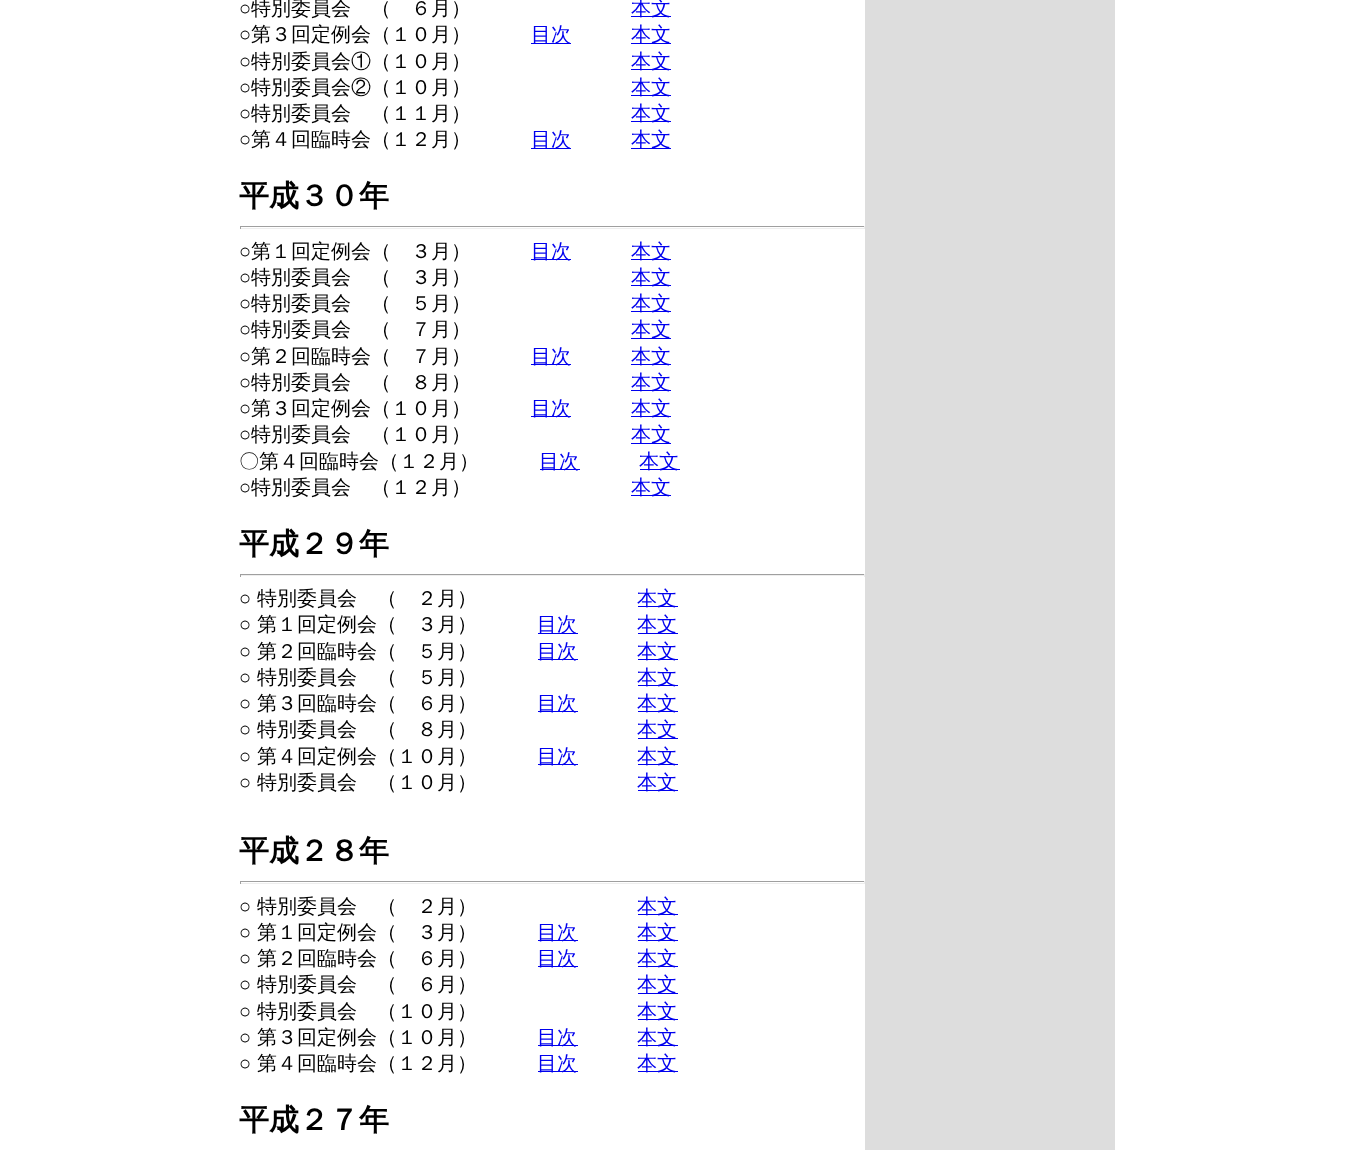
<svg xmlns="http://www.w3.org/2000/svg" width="1353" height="1150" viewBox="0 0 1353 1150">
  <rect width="100%" height="100%" fill="rgb(255,255,255)"/>
  <text x="239" y="15" font-family="Liberation Sans" font-size="20" fill="rgb(0,0,0)">○</text>
  <text x="251" y="15" font-family="WenQuanYi Zen Hei" font-size="20" font-weight="500" fill="rgb(0,0,0)">特別委員会　（　６月）</text>
  <rect x="631" y="16" width="40" height="1" fill="rgb(0,0,238)"/>
  <text x="631" y="15" font-family="WenQuanYi Zen Hei" font-size="20" font-weight="500" fill="rgb(0,0,238)">本文</text>
  <text x="239" y="41" font-family="Liberation Sans" font-size="20" fill="rgb(0,0,0)">○</text>
  <text x="251" y="41" font-family="WenQuanYi Zen Hei" font-size="20" font-weight="500" fill="rgb(0,0,0)">第３回定例会（１０月）</text>
  <rect x="531" y="43" width="40" height="1" fill="rgb(0,0,238)"/>
  <text x="531" y="41" font-family="WenQuanYi Zen Hei" font-size="20" font-weight="500" fill="rgb(0,0,238)">目次</text>
  <rect x="631" y="43" width="40" height="1" fill="rgb(0,0,238)"/>
  <text x="631" y="41" font-family="WenQuanYi Zen Hei" font-size="20" font-weight="500" fill="rgb(0,0,238)">本文</text>
  <text x="239" y="68" font-family="Liberation Sans" font-size="20" fill="rgb(0,0,0)">○</text>
  <text x="251" y="68" font-family="WenQuanYi Zen Hei" font-size="20" font-weight="500" fill="rgb(0,0,0)">特別委員会①（１０月）</text>
  <rect x="631" y="69" width="40" height="1" fill="rgb(0,0,238)"/>
  <text x="631" y="68" font-family="WenQuanYi Zen Hei" font-size="20" font-weight="500" fill="rgb(0,0,238)">本文</text>
  <text x="239" y="94" font-family="Liberation Sans" font-size="20" fill="rgb(0,0,0)">○</text>
  <text x="251" y="94" font-family="WenQuanYi Zen Hei" font-size="20" font-weight="500" fill="rgb(0,0,0)">特別委員会②（１０月）</text>
  <rect x="631" y="95" width="40" height="1" fill="rgb(0,0,238)"/>
  <text x="631" y="94" font-family="WenQuanYi Zen Hei" font-size="20" font-weight="500" fill="rgb(0,0,238)">本文</text>
  <text x="239" y="120" font-family="Liberation Sans" font-size="20" fill="rgb(0,0,0)">○</text>
  <text x="251" y="120" font-family="WenQuanYi Zen Hei" font-size="20" font-weight="500" fill="rgb(0,0,0)">特別委員会　（１１月）</text>
  <rect x="631" y="121" width="40" height="1" fill="rgb(0,0,238)"/>
  <text x="631" y="120" font-family="WenQuanYi Zen Hei" font-size="20" font-weight="500" fill="rgb(0,0,238)">本文</text>
  <text x="239" y="146" font-family="Liberation Sans" font-size="20" fill="rgb(0,0,0)">○</text>
  <text x="251" y="146" font-family="WenQuanYi Zen Hei" font-size="20" font-weight="500" fill="rgb(0,0,0)">第４回臨時会（１２月）</text>
  <rect x="531" y="148" width="40" height="1" fill="rgb(0,0,238)"/>
  <text x="531" y="146" font-family="WenQuanYi Zen Hei" font-size="20" font-weight="500" fill="rgb(0,0,238)">目次</text>
  <rect x="631" y="148" width="40" height="1" fill="rgb(0,0,238)"/>
  <text x="631" y="146" font-family="WenQuanYi Zen Hei" font-size="20" font-weight="500" fill="rgb(0,0,238)">本文</text>
  <text x="239" y="206" font-family="WenQuanYi Zen Hei" font-size="30" font-weight="bold" fill="rgb(0,0,0)">平成３０年</text>
  <rect x="240" y="226" width="625" height="1" fill="rgb(159,159,159)"/>
  <rect x="864" y="226" width="1" height="3" fill="rgb(238,238,238)"/>
  <rect x="240" y="228" width="625" height="1" fill="rgb(238,238,238)"/>
  <rect x="240" y="226" width="1" height="3" fill="rgb(159,159,159)"/>
  <text x="239" y="258" font-family="Liberation Sans" font-size="20" fill="rgb(0,0,0)">○</text>
  <text x="251" y="258" font-family="WenQuanYi Zen Hei" font-size="20" font-weight="500" fill="rgb(0,0,0)">第１回定例会（　３月）</text>
  <rect x="531" y="259" width="40" height="1" fill="rgb(0,0,238)"/>
  <text x="531" y="258" font-family="WenQuanYi Zen Hei" font-size="20" font-weight="500" fill="rgb(0,0,238)">目次</text>
  <rect x="631" y="259" width="40" height="1" fill="rgb(0,0,238)"/>
  <text x="631" y="258" font-family="WenQuanYi Zen Hei" font-size="20" font-weight="500" fill="rgb(0,0,238)">本文</text>
  <text x="239" y="284" font-family="Liberation Sans" font-size="20" fill="rgb(0,0,0)">○</text>
  <text x="251" y="284" font-family="WenQuanYi Zen Hei" font-size="20" font-weight="500" fill="rgb(0,0,0)">特別委員会　（　３月）</text>
  <rect x="631" y="285" width="40" height="1" fill="rgb(0,0,238)"/>
  <text x="631" y="284" font-family="WenQuanYi Zen Hei" font-size="20" font-weight="500" fill="rgb(0,0,238)">本文</text>
  <text x="239" y="310" font-family="Liberation Sans" font-size="20" fill="rgb(0,0,0)">○</text>
  <text x="251" y="310" font-family="WenQuanYi Zen Hei" font-size="20" font-weight="500" fill="rgb(0,0,0)">特別委員会　（　５月）</text>
  <rect x="631" y="311" width="40" height="1" fill="rgb(0,0,238)"/>
  <text x="631" y="310" font-family="WenQuanYi Zen Hei" font-size="20" font-weight="500" fill="rgb(0,0,238)">本文</text>
  <text x="239" y="336" font-family="Liberation Sans" font-size="20" fill="rgb(0,0,0)">○</text>
  <text x="251" y="336" font-family="WenQuanYi Zen Hei" font-size="20" font-weight="500" fill="rgb(0,0,0)">特別委員会　（　７月）</text>
  <rect x="631" y="338" width="40" height="1" fill="rgb(0,0,238)"/>
  <text x="631" y="336" font-family="WenQuanYi Zen Hei" font-size="20" font-weight="500" fill="rgb(0,0,238)">本文</text>
  <text x="239" y="363" font-family="Liberation Sans" font-size="20" fill="rgb(0,0,0)">○</text>
  <text x="251" y="363" font-family="WenQuanYi Zen Hei" font-size="20" font-weight="500" fill="rgb(0,0,0)">第２回臨時会（　７月）</text>
  <rect x="531" y="364" width="40" height="1" fill="rgb(0,0,238)"/>
  <text x="531" y="363" font-family="WenQuanYi Zen Hei" font-size="20" font-weight="500" fill="rgb(0,0,238)">目次</text>
  <rect x="631" y="364" width="40" height="1" fill="rgb(0,0,238)"/>
  <text x="631" y="363" font-family="WenQuanYi Zen Hei" font-size="20" font-weight="500" fill="rgb(0,0,238)">本文</text>
  <text x="239" y="389" font-family="Liberation Sans" font-size="20" fill="rgb(0,0,0)">○</text>
  <text x="251" y="389" font-family="WenQuanYi Zen Hei" font-size="20" font-weight="500" fill="rgb(0,0,0)">特別委員会　（　８月）</text>
  <rect x="631" y="390" width="40" height="1" fill="rgb(0,0,238)"/>
  <text x="631" y="389" font-family="WenQuanYi Zen Hei" font-size="20" font-weight="500" fill="rgb(0,0,238)">本文</text>
  <text x="239" y="415" font-family="Liberation Sans" font-size="20" fill="rgb(0,0,0)">○</text>
  <text x="251" y="415" font-family="WenQuanYi Zen Hei" font-size="20" font-weight="500" fill="rgb(0,0,0)">第３回定例会（１０月）</text>
  <rect x="531" y="416" width="40" height="1" fill="rgb(0,0,238)"/>
  <text x="531" y="415" font-family="WenQuanYi Zen Hei" font-size="20" font-weight="500" fill="rgb(0,0,238)">目次</text>
  <rect x="631" y="416" width="40" height="1" fill="rgb(0,0,238)"/>
  <text x="631" y="415" font-family="WenQuanYi Zen Hei" font-size="20" font-weight="500" fill="rgb(0,0,238)">本文</text>
  <text x="239" y="441" font-family="Liberation Sans" font-size="20" fill="rgb(0,0,0)">○</text>
  <text x="251" y="441" font-family="WenQuanYi Zen Hei" font-size="20" font-weight="500" fill="rgb(0,0,0)">特別委員会　（１０月）</text>
  <rect x="631" y="443" width="40" height="1" fill="rgb(0,0,238)"/>
  <text x="631" y="441" font-family="WenQuanYi Zen Hei" font-size="20" font-weight="500" fill="rgb(0,0,238)">本文</text>
  <text x="239" y="468" font-family="WenQuanYi Zen Hei" font-size="20" font-weight="500" fill="rgb(0,0,0)">〇第４回臨時会（１２月）</text>
  <rect x="540" y="469" width="40" height="1" fill="rgb(0,0,238)"/>
  <text x="539" y="468" font-family="WenQuanYi Zen Hei" font-size="20" font-weight="500" fill="rgb(0,0,238)">目次</text>
  <rect x="640" y="469" width="40" height="1" fill="rgb(0,0,238)"/>
  <text x="639" y="468" font-family="WenQuanYi Zen Hei" font-size="20" font-weight="500" fill="rgb(0,0,238)">本文</text>
  <text x="239" y="494" font-family="Liberation Sans" font-size="20" fill="rgb(0,0,0)">○</text>
  <text x="251" y="494" font-family="WenQuanYi Zen Hei" font-size="20" font-weight="500" fill="rgb(0,0,0)">特別委員会　（１２月）</text>
  <rect x="631" y="495" width="40" height="1" fill="rgb(0,0,238)"/>
  <text x="631" y="494" font-family="WenQuanYi Zen Hei" font-size="20" font-weight="500" fill="rgb(0,0,238)">本文</text>
  <text x="239" y="554" font-family="WenQuanYi Zen Hei" font-size="30" font-weight="bold" fill="rgb(0,0,0)">平成２９年</text>
  <rect x="240" y="574" width="625" height="1" fill="rgb(159,159,159)"/>
  <rect x="864" y="574" width="1" height="3" fill="rgb(238,238,238)"/>
  <rect x="240" y="575" width="625" height="1" fill="rgb(238,238,238)"/>
  <rect x="240" y="574" width="1" height="3" fill="rgb(159,159,159)"/>
  <text x="239" y="605" font-family="Liberation Sans" font-size="20" fill="rgb(0,0,0)">○</text>
  <text x="257" y="605" font-family="WenQuanYi Zen Hei" font-size="20" font-weight="500" fill="rgb(0,0,0)">特別委員会　（　２月）</text>
  <rect x="638" y="606" width="40" height="1" fill="rgb(0,0,238)"/>
  <text x="637" y="605" font-family="WenQuanYi Zen Hei" font-size="20" font-weight="500" fill="rgb(0,0,238)">本文</text>
  <text x="239" y="631" font-family="Liberation Sans" font-size="20" fill="rgb(0,0,0)">○</text>
  <text x="257" y="631" font-family="WenQuanYi Zen Hei" font-size="20" font-weight="500" fill="rgb(0,0,0)">第１回定例会（　３月）</text>
  <rect x="538" y="633" width="40" height="1" fill="rgb(0,0,238)"/>
  <text x="537" y="631" font-family="WenQuanYi Zen Hei" font-size="20" font-weight="500" fill="rgb(0,0,238)">目次</text>
  <rect x="638" y="633" width="40" height="1" fill="rgb(0,0,238)"/>
  <text x="637" y="631" font-family="WenQuanYi Zen Hei" font-size="20" font-weight="500" fill="rgb(0,0,238)">本文</text>
  <text x="239" y="658" font-family="Liberation Sans" font-size="20" fill="rgb(0,0,0)">○</text>
  <text x="257" y="658" font-family="WenQuanYi Zen Hei" font-size="20" font-weight="500" fill="rgb(0,0,0)">第２回臨時会（　５月）</text>
  <rect x="538" y="659" width="40" height="1" fill="rgb(0,0,238)"/>
  <text x="537" y="658" font-family="WenQuanYi Zen Hei" font-size="20" font-weight="500" fill="rgb(0,0,238)">目次</text>
  <rect x="638" y="659" width="40" height="1" fill="rgb(0,0,238)"/>
  <text x="637" y="658" font-family="WenQuanYi Zen Hei" font-size="20" font-weight="500" fill="rgb(0,0,238)">本文</text>
  <text x="239" y="684" font-family="Liberation Sans" font-size="20" fill="rgb(0,0,0)">○</text>
  <text x="257" y="684" font-family="WenQuanYi Zen Hei" font-size="20" font-weight="500" fill="rgb(0,0,0)">特別委員会　（　５月）</text>
  <rect x="638" y="685" width="40" height="1" fill="rgb(0,0,238)"/>
  <text x="637" y="684" font-family="WenQuanYi Zen Hei" font-size="20" font-weight="500" fill="rgb(0,0,238)">本文</text>
  <text x="239" y="710" font-family="Liberation Sans" font-size="20" fill="rgb(0,0,0)">○</text>
  <text x="257" y="710" font-family="WenQuanYi Zen Hei" font-size="20" font-weight="500" fill="rgb(0,0,0)">第３回臨時会（　６月）</text>
  <rect x="538" y="711" width="40" height="1" fill="rgb(0,0,238)"/>
  <text x="537" y="710" font-family="WenQuanYi Zen Hei" font-size="20" font-weight="500" fill="rgb(0,0,238)">目次</text>
  <rect x="638" y="711" width="40" height="1" fill="rgb(0,0,238)"/>
  <text x="637" y="710" font-family="WenQuanYi Zen Hei" font-size="20" font-weight="500" fill="rgb(0,0,238)">本文</text>
  <text x="239" y="736" font-family="Liberation Sans" font-size="20" fill="rgb(0,0,0)">○</text>
  <text x="257" y="736" font-family="WenQuanYi Zen Hei" font-size="20" font-weight="500" fill="rgb(0,0,0)">特別委員会　（　８月）</text>
  <rect x="638" y="738" width="40" height="1" fill="rgb(0,0,238)"/>
  <text x="637" y="736" font-family="WenQuanYi Zen Hei" font-size="20" font-weight="500" fill="rgb(0,0,238)">本文</text>
  <text x="239" y="763" font-family="Liberation Sans" font-size="20" fill="rgb(0,0,0)">○</text>
  <text x="257" y="763" font-family="WenQuanYi Zen Hei" font-size="20" font-weight="500" fill="rgb(0,0,0)">第４回定例会（１０月）</text>
  <rect x="538" y="764" width="40" height="1" fill="rgb(0,0,238)"/>
  <text x="537" y="763" font-family="WenQuanYi Zen Hei" font-size="20" font-weight="500" fill="rgb(0,0,238)">目次</text>
  <rect x="638" y="764" width="40" height="1" fill="rgb(0,0,238)"/>
  <text x="637" y="763" font-family="WenQuanYi Zen Hei" font-size="20" font-weight="500" fill="rgb(0,0,238)">本文</text>
  <text x="239" y="789" font-family="Liberation Sans" font-size="20" fill="rgb(0,0,0)">○</text>
  <text x="257" y="789" font-family="WenQuanYi Zen Hei" font-size="20" font-weight="500" fill="rgb(0,0,0)">特別委員会　（１０月）</text>
  <rect x="638" y="790" width="40" height="1" fill="rgb(0,0,238)"/>
  <text x="637" y="789" font-family="WenQuanYi Zen Hei" font-size="20" font-weight="500" fill="rgb(0,0,238)">本文</text>
  <text x="239" y="861" font-family="WenQuanYi Zen Hei" font-size="30" font-weight="bold" fill="rgb(0,0,0)">平成２８年</text>
  <rect x="240" y="881" width="625" height="1" fill="rgb(159,159,159)"/>
  <rect x="864" y="881" width="1" height="3" fill="rgb(238,238,238)"/>
  <rect x="240" y="883" width="625" height="1" fill="rgb(238,238,238)"/>
  <rect x="240" y="881" width="1" height="3" fill="rgb(159,159,159)"/>
  <text x="239" y="913" font-family="Liberation Sans" font-size="20" fill="rgb(0,0,0)">○</text>
  <text x="257" y="913" font-family="WenQuanYi Zen Hei" font-size="20" font-weight="500" fill="rgb(0,0,0)">特別委員会　（　２月）</text>
  <rect x="638" y="914" width="40" height="1" fill="rgb(0,0,238)"/>
  <text x="637" y="913" font-family="WenQuanYi Zen Hei" font-size="20" font-weight="500" fill="rgb(0,0,238)">本文</text>
  <text x="239" y="939" font-family="Liberation Sans" font-size="20" fill="rgb(0,0,0)">○</text>
  <text x="257" y="939" font-family="WenQuanYi Zen Hei" font-size="20" font-weight="500" fill="rgb(0,0,0)">第１回定例会（　３月）</text>
  <rect x="538" y="940" width="40" height="1" fill="rgb(0,0,238)"/>
  <text x="537" y="939" font-family="WenQuanYi Zen Hei" font-size="20" font-weight="500" fill="rgb(0,0,238)">目次</text>
  <rect x="638" y="940" width="40" height="1" fill="rgb(0,0,238)"/>
  <text x="637" y="939" font-family="WenQuanYi Zen Hei" font-size="20" font-weight="500" fill="rgb(0,0,238)">本文</text>
  <text x="239" y="965" font-family="Liberation Sans" font-size="20" fill="rgb(0,0,0)">○</text>
  <text x="257" y="965" font-family="WenQuanYi Zen Hei" font-size="20" font-weight="500" fill="rgb(0,0,0)">第２回臨時会（　６月）</text>
  <rect x="538" y="966" width="40" height="1" fill="rgb(0,0,238)"/>
  <text x="537" y="965" font-family="WenQuanYi Zen Hei" font-size="20" font-weight="500" fill="rgb(0,0,238)">目次</text>
  <rect x="638" y="966" width="40" height="1" fill="rgb(0,0,238)"/>
  <text x="637" y="965" font-family="WenQuanYi Zen Hei" font-size="20" font-weight="500" fill="rgb(0,0,238)">本文</text>
  <text x="239" y="991" font-family="Liberation Sans" font-size="20" fill="rgb(0,0,0)">○</text>
  <text x="257" y="991" font-family="WenQuanYi Zen Hei" font-size="20" font-weight="500" fill="rgb(0,0,0)">特別委員会　（　６月）</text>
  <rect x="638" y="993" width="40" height="1" fill="rgb(0,0,238)"/>
  <text x="637" y="991" font-family="WenQuanYi Zen Hei" font-size="20" font-weight="500" fill="rgb(0,0,238)">本文</text>
  <text x="239" y="1018" font-family="Liberation Sans" font-size="20" fill="rgb(0,0,0)">○</text>
  <text x="257" y="1018" font-family="WenQuanYi Zen Hei" font-size="20" font-weight="500" fill="rgb(0,0,0)">特別委員会　（１０月）</text>
  <rect x="638" y="1019" width="40" height="1" fill="rgb(0,0,238)"/>
  <text x="637" y="1018" font-family="WenQuanYi Zen Hei" font-size="20" font-weight="500" fill="rgb(0,0,238)">本文</text>
  <text x="239" y="1044" font-family="Liberation Sans" font-size="20" fill="rgb(0,0,0)">○</text>
  <text x="257" y="1044" font-family="WenQuanYi Zen Hei" font-size="20" font-weight="500" fill="rgb(0,0,0)">第３回定例会（１０月）</text>
  <rect x="538" y="1045" width="40" height="1" fill="rgb(0,0,238)"/>
  <text x="537" y="1044" font-family="WenQuanYi Zen Hei" font-size="20" font-weight="500" fill="rgb(0,0,238)">目次</text>
  <rect x="638" y="1045" width="40" height="1" fill="rgb(0,0,238)"/>
  <text x="637" y="1044" font-family="WenQuanYi Zen Hei" font-size="20" font-weight="500" fill="rgb(0,0,238)">本文</text>
  <text x="239" y="1070" font-family="Liberation Sans" font-size="20" fill="rgb(0,0,0)">○</text>
  <text x="257" y="1070" font-family="WenQuanYi Zen Hei" font-size="20" font-weight="500" fill="rgb(0,0,0)">第４回臨時会（１２月）</text>
  <rect x="538" y="1071" width="40" height="1" fill="rgb(0,0,238)"/>
  <text x="537" y="1070" font-family="WenQuanYi Zen Hei" font-size="20" font-weight="500" fill="rgb(0,0,238)">目次</text>
  <rect x="638" y="1071" width="40" height="1" fill="rgb(0,0,238)"/>
  <text x="637" y="1070" font-family="WenQuanYi Zen Hei" font-size="20" font-weight="500" fill="rgb(0,0,238)">本文</text>
  <text x="239" y="1130" font-family="WenQuanYi Zen Hei" font-size="30" font-weight="bold" fill="rgb(0,0,0)">平成２７年</text>
  <rect x="865" y="0" width="250" height="1150" fill="rgb(221,221,221)"/>
</svg>
